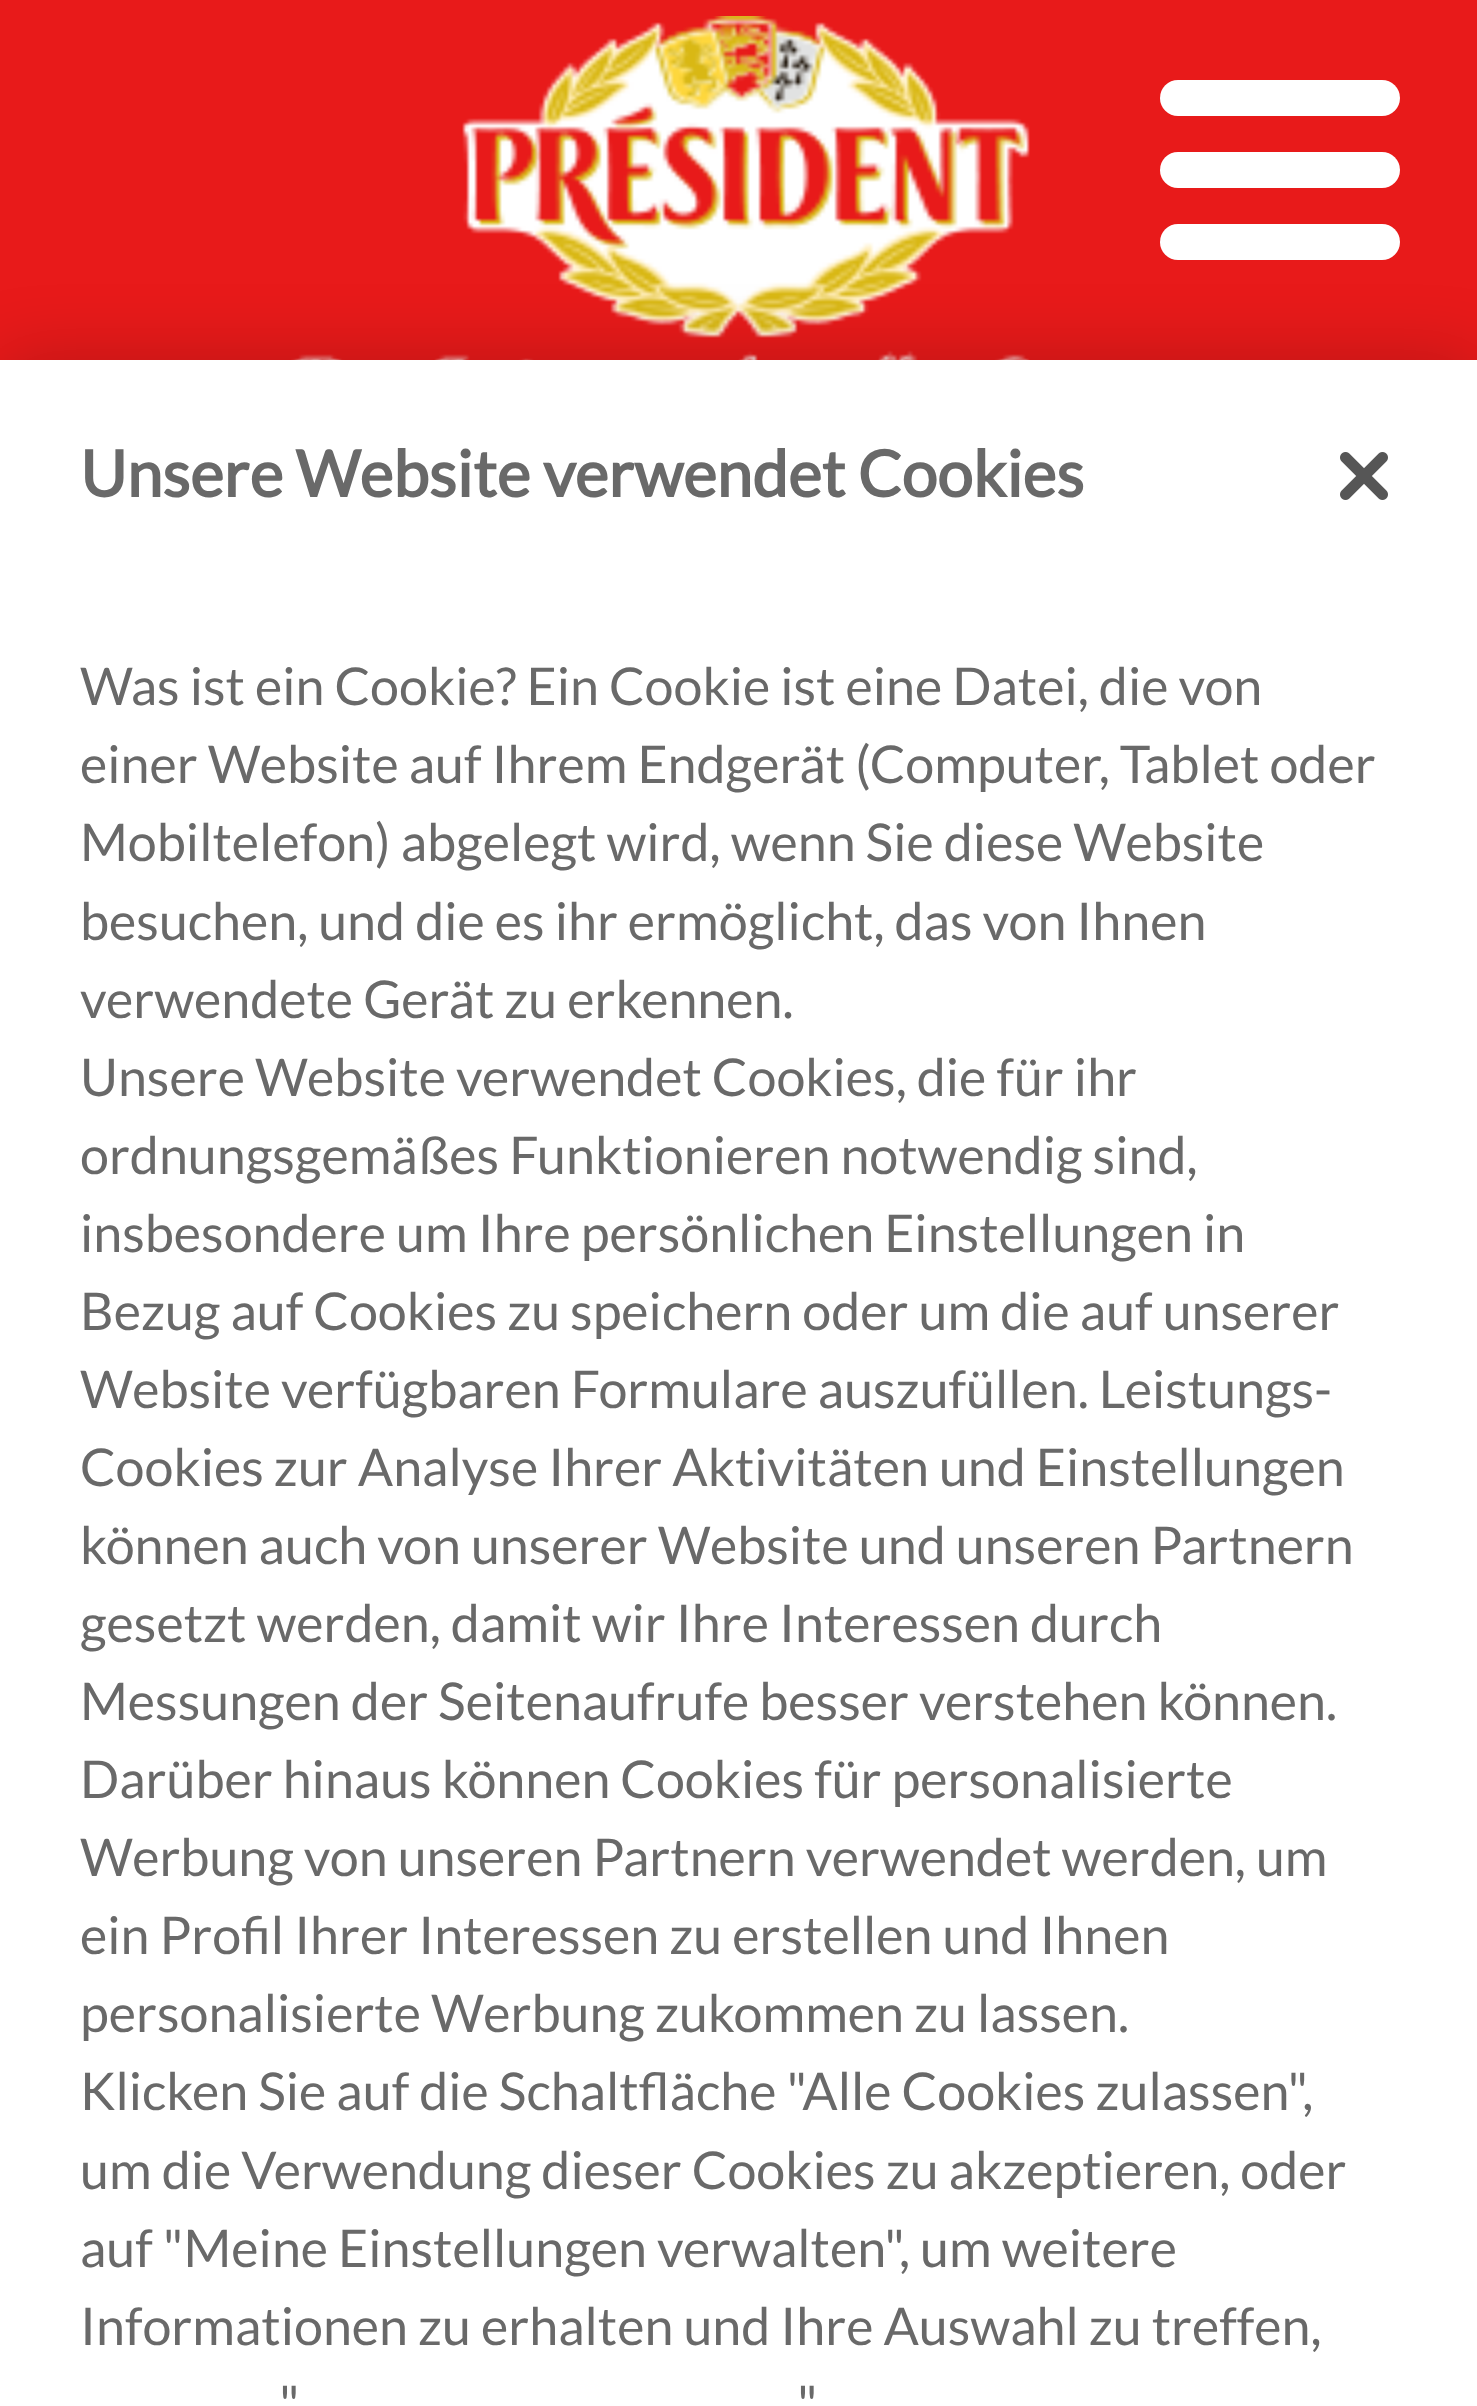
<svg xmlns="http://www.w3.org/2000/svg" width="1477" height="2406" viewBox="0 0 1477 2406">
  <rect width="100%" height="100%" fill="rgb(232,26,26)"/>
  <image x="291" y="16" width="739" height="344" href="pic1.png"/>
  <rect x="1160" y="80" width="240" height="36" rx="18" fill="rgb(255,255,255)"/>
  <rect x="1160" y="152" width="240" height="36" rx="18" fill="rgb(255,255,255)"/>
  <rect x="1160" y="224" width="240" height="36" rx="18" fill="rgb(255,255,255)"/>
  <rect x="0" y="360" width="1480" height="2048" fill="rgba(0,0,0,0.2)" filter="blur(36px)"/>
  <rect x="0" y="360" width="1477" height="2046" fill="rgb(255,255,255)"/>
  <text x="80" y="497" font-family="Lato" font-size="64" font-weight="bold" fill="rgb(105,105,105)">Unsere Website verwendet Cookies</text>
  <g font-family="Lato" font-size="52" fill="rgb(105,105,105)">
    <text>
      <tspan x="80" y="705">Was ist ein Cookie? Ein Cookie ist eine Datei, die von</tspan>
      <tspan x="80" y="783">einer Website auf Ihrem Endgerät (Computer, Tablet oder</tspan>
      <tspan x="80" y="861">Mobiltelefon) abgelegt wird, wenn Sie diese Website</tspan>
      <tspan x="80" y="940">besuchen, und die es ihr ermöglicht, das von Ihnen</tspan>
      <tspan x="80" y="1018">verwendete Gerät zu erkennen.</tspan>
      <tspan x="80" y="1096">Unsere Website verwendet Cookies, die für ihr</tspan>
      <tspan x="80" y="1174">ordnungsgemäßes Funktionieren notwendig sind,</tspan>
      <tspan x="80" y="1252">insbesondere um Ihre persönlichen Einstellungen in</tspan>
      <tspan x="80" y="1330">Bezug auf Cookies zu speichern oder um die auf unserer</tspan>
      <tspan x="80" y="1408">Website verfügbaren Formulare auszufüllen. Leistungs-</tspan>
      <tspan x="80" y="1486">Cookies zur Analyse Ihrer Aktivitäten und Einstellungen</tspan>
      <tspan x="80" y="1564">können auch von unserer Website und unseren Partnern</tspan>
      <tspan x="80" y="1642">gesetzt werden, damit wir Ihre Interessen durch</tspan>
      <tspan x="80" y="1720">Messungen der Seitenaufrufe besser verstehen können.</tspan>
      <tspan x="80" y="1798">Darüber hinaus können Cookies für personalisierte</tspan>
      <tspan x="80" y="1876">Werbung von unseren Partnern verwendet werden, um</tspan>
      <tspan x="80" y="1954">ein Profil Ihrer Interessen zu erstellen und Ihnen</tspan>
      <tspan x="80" y="2032">personalisierte Werbung zukommen zu lassen.</tspan>
      <tspan x="80" y="2110">Klicken Sie auf die Schaltfläche "Alle Cookies zulassen",</tspan>
      <tspan x="80" y="2189">um die Verwendung dieser Cookies zu akzeptieren, oder</tspan>
      <tspan x="80" y="2267">auf "Meine Einstellungen verwalten", um weitere</tspan>
      <tspan x="80" y="2345">Informationen zu erhalten und Ihre Auswahl zu treffen,</tspan>
    </text>
    <text x="279" y="2423">"</text>
    <text x="797" y="2423">"</text>
  </g>
  <image x="1340" y="452" width="48" height="48" href="pic2.png"/>
</svg>
